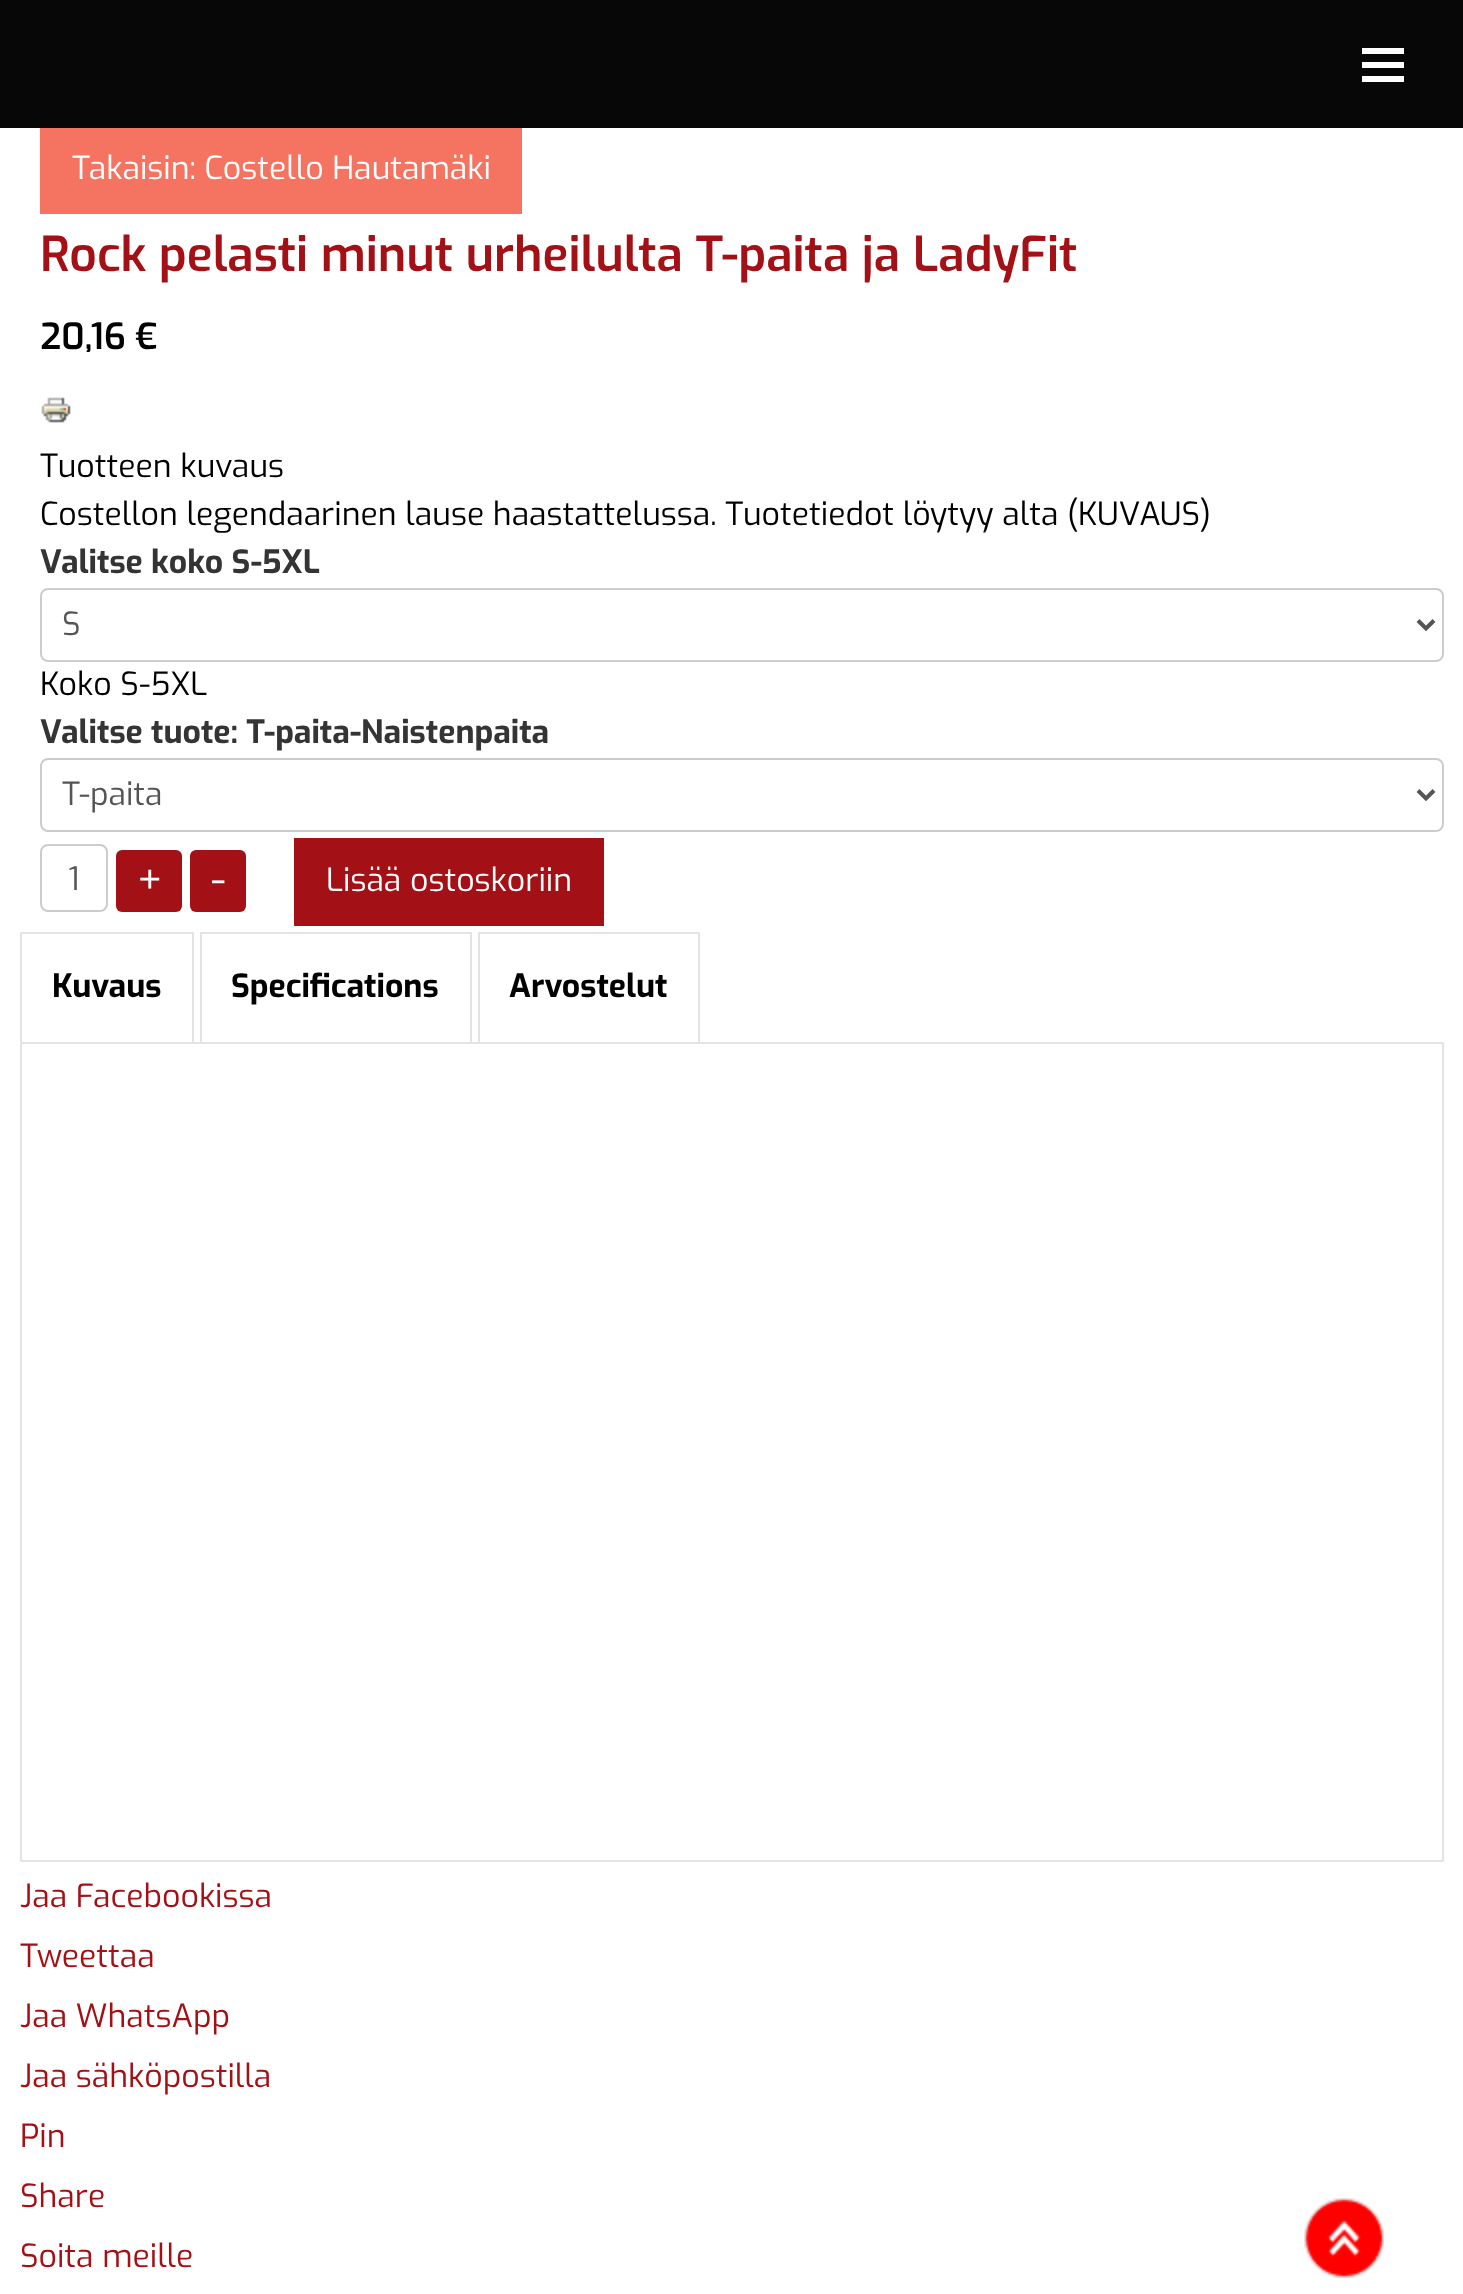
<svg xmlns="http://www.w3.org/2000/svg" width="1463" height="2294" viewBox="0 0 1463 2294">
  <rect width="100%" height="100%" fill="rgb(255,255,255)"/>
  <rect x="0" y="0" width="1463" height="128" fill="rgb(7,7,7)"/>
  <rect x="1362" y="48" width="42" height="6" fill="rgb(255,255,255)"/>
  <rect x="1362" y="62" width="42" height="6" fill="rgb(255,255,255)"/>
  <rect x="1362" y="76" width="42" height="6" fill="rgb(255,255,255)"/>
  <rect x="40" y="128" width="482" height="86" fill="rgb(245,116,97)"/>
  <text x="72" y="179" font-family="Exo" font-size="32" fill="rgb(255,255,255)">Takaisin: Costello Hautamäki</text>
  <text x="40" y="271" font-family="Exo" font-size="48" font-weight="600" fill="rgb(163,16,21)">Rock pelasti minut urheilulta T-paita ja LadyFit</text>
  <text x="40" y="349" font-family="Exo" font-size="36" font-weight="600" fill="rgb(0,0,0)">20,16 €</text>
  <image x="41" y="397" width="30" height="26" href="pic1.png"/>
  <g font-family="Exo" font-size="32" fill="rgb(0,0,0)">
    <text>
      <tspan x="40" y="477">Tuotteen kuvaus</tspan>
      <tspan x="40" y="525">Costellon legendaarinen lause haastattelussa. Tuotetiedot löytyy alta (KUVAUS)</tspan>
    </text>
  </g>
  <text x="40" y="573" font-family="Exo" font-size="32" font-weight="bold" fill="rgb(52,52,52)">Valitse koko S-5XL</text>
  <rect x="41" y="589" width="1402" height="72" rx="7" fill="none" stroke="rgb(204,204,204)" stroke-width="2"/>
  <path d="M1418 620.5L1426 628.5L1434 620.5" fill="none" stroke="rgb(85,85,85)" stroke-width="4"/>
  <text x="62" y="635" font-family="Exo" font-size="32" fill="rgb(85,85,85)">S</text>
  <text x="40" y="695" font-family="Exo" font-size="32" fill="rgb(0,0,0)">Koko S-5XL</text>
  <text x="40" y="743" font-family="Exo" font-size="32" font-weight="bold" fill="rgb(52,52,52)">Valitse tuote: T-paita-Naistenpaita</text>
  <rect x="41" y="759" width="1402" height="72" rx="7" fill="none" stroke="rgb(204,204,204)" stroke-width="2"/>
  <path d="M1418 790.5L1426 798.5L1434 790.5" fill="none" stroke="rgb(85,85,85)" stroke-width="4"/>
  <text x="62" y="805" font-family="Exo" font-size="32" fill="rgb(85,85,85)">T-paita</text>
  <rect x="41" y="845" width="66" height="66" rx="7" fill="none" stroke="rgb(204,204,204)" stroke-width="2"/>
  <text x="68" y="890" font-family="Exo" font-size="32" fill="rgb(85,85,85)">1</text>
  <rect x="116" y="850" width="66" height="62" rx="6" fill="rgb(163,16,21)"/>
  <text x="137" y="894" font-family="Exo" font-size="42" fill="rgb(255,255,255)">+</text>
  <rect x="190" y="850" width="56" height="62" rx="6" fill="rgb(163,16,21)"/>
  <text x="211" y="894" font-family="Exo" font-size="42" fill="rgb(255,255,255)">-</text>
  <rect x="294" y="838" width="310" height="88" fill="rgb(163,16,21)"/>
  <text x="326" y="891" font-family="Exo" font-size="32" fill="rgb(255,255,255)">Lisää ostoskoriin</text>
  <rect x="20" y="932" width="174" height="2" fill="rgb(228,228,228)"/>
  <rect x="192" y="932" width="2" height="110" fill="rgb(228,228,228)"/>
  <rect x="20" y="932" width="2" height="110" fill="rgb(228,228,228)"/>
  <text x="52" y="997" font-family="Exo" font-size="32" font-weight="bold" fill="rgb(0,0,0)">Kuvaus</text>
  <rect x="200" y="932" width="272" height="2" fill="rgb(228,228,228)"/>
  <rect x="470" y="932" width="2" height="110" fill="rgb(228,228,228)"/>
  <rect x="200" y="932" width="2" height="110" fill="rgb(228,228,228)"/>
  <text x="231" y="997" font-family="Exo" font-size="32" font-weight="bold" fill="rgb(0,0,0)">Specifications</text>
  <rect x="478" y="932" width="222" height="2" fill="rgb(228,228,228)"/>
  <rect x="698" y="932" width="2" height="110" fill="rgb(228,228,228)"/>
  <rect x="478" y="932" width="2" height="110" fill="rgb(228,228,228)"/>
  <text x="509" y="997" font-family="Exo" font-size="32" font-weight="bold" fill="rgb(0,0,0)">Arvostelut</text>
  <rect x="21" y="1043" width="1422" height="818" fill="none" stroke="rgb(228,228,228)" stroke-width="2"/>
  <g font-family="Exo" font-size="32" fill="rgb(163,16,21)">
    <text>
      <tspan x="20" y="1907">Jaa Facebookissa</tspan>
      <tspan x="20" y="1967">Tweettaa</tspan>
      <tspan x="20" y="2027">Jaa WhatsApp</tspan>
      <tspan x="20" y="2087">Jaa sähköpostilla</tspan>
      <tspan x="20" y="2147">Pin</tspan>
      <tspan x="20" y="2207">Share</tspan>
      <tspan x="20" y="2267">Soita meille</tspan>
    </text>
  </g>
  <image x="1304" y="2198" width="80" height="80" href="pic2.png"/>
</svg>
